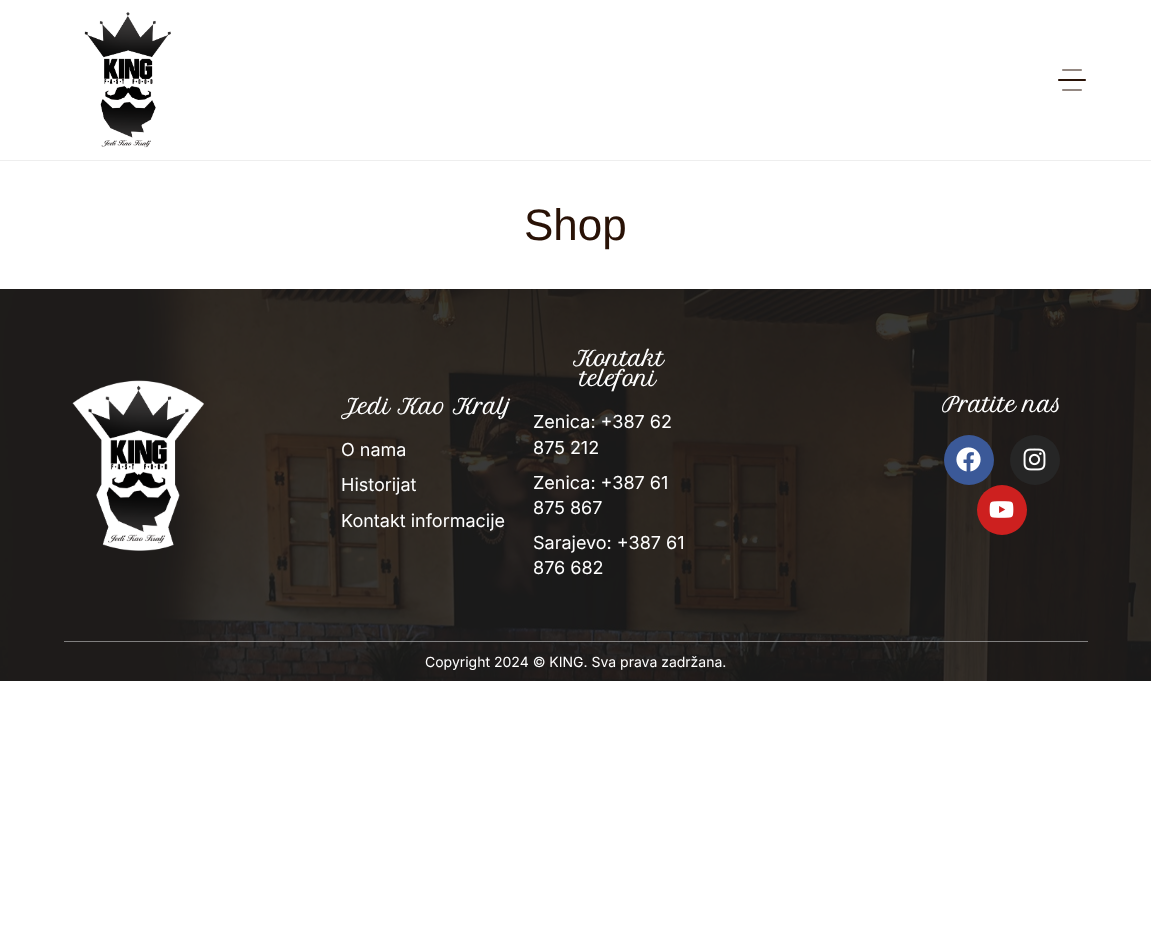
<svg xmlns="http://www.w3.org/2000/svg" width="1151" height="927" viewBox="0 0 1151 927">
  <rect width="100%" height="100%" fill="rgb(255,255,255)"/>
  <image x="84" y="12" width="87" height="136" href="pic1.png"/>
  <image x="1058" y="69" width="28" height="22" href="pic2.png"/>
  <rect x="0" y="160" width="1151" height="1" fill="rgb(238,238,238)"/>
  <text x="524" y="240" font-family="Liberation Sans" font-size="44" fill="rgb(41,18,6)">Shop</text>
  <image x="0" y="289" width="1151" height="392" href="pic3.png"/>
  <image x="72" y="380" width="132" height="171" href="pic4.png"/>
  <text x="341" y="414" font-family="Petit Formal Script" font-size="20" font-weight="bold" fill="rgb(255,255,255)">Jedi Kao Kralj</text>
  <g font-family="Inter" font-size="18" fill="rgb(255,255,255)">
    <text>
      <tspan x="341" y="456">O nama</tspan>
      <tspan x="341" y="491">Historijat</tspan>
    </text>
    <text x="341" y="527">Kontakt informacije</text>
  </g>
  <g font-family="Petit Formal Script" font-size="20" font-weight="bold" fill="rgb(255,255,255)">
    <text x="573" y="366">Kontakt</text>
    <text x="580" y="386">telefoni</text>
  </g>
  <g font-family="Inter" font-size="18" fill="rgb(255,255,255)">
    <text>
      <tspan x="533" y="428">Zenica: +387 62</tspan>
      <tspan x="533" y="454">875 212</tspan>
      <tspan x="533" y="489">Zenica: +387 61</tspan>
      <tspan x="533" y="514">875 867</tspan>
      <tspan x="533" y="549">Sarajevo: +387 61</tspan>
      <tspan x="533" y="574">876 682</tspan>
    </text>
  </g>
  <text x="942" y="412" font-family="Petit Formal Script" font-size="20" font-weight="bold" fill="rgb(255,255,255)">Pratite nas</text>
  <circle cx="969" cy="460" r="25" fill="rgb(59,89,152)"/>
  <image x="956" y="447" width="25" height="25" href="pic5.png"/>
  <circle cx="1035" cy="460" r="25" fill="rgb(38,38,38)"/>
  <image x="1023" y="448" width="23" height="23" href="pic6.png"/>
  <circle cx="1002" cy="510" r="25" fill="rgb(205,32,31)"/>
  <image x="989" y="501" width="25" height="17" href="pic7.png"/>
  <rect x="64" y="641" width="1024" height="1" fill="rgba(184,184,184,0.64)"/>
  <text x="425" y="667" font-family="Inter" font-size="14" fill="rgb(255,255,255)">Copyright 2024 © KING. Sva prava zadržana.</text>
</svg>
